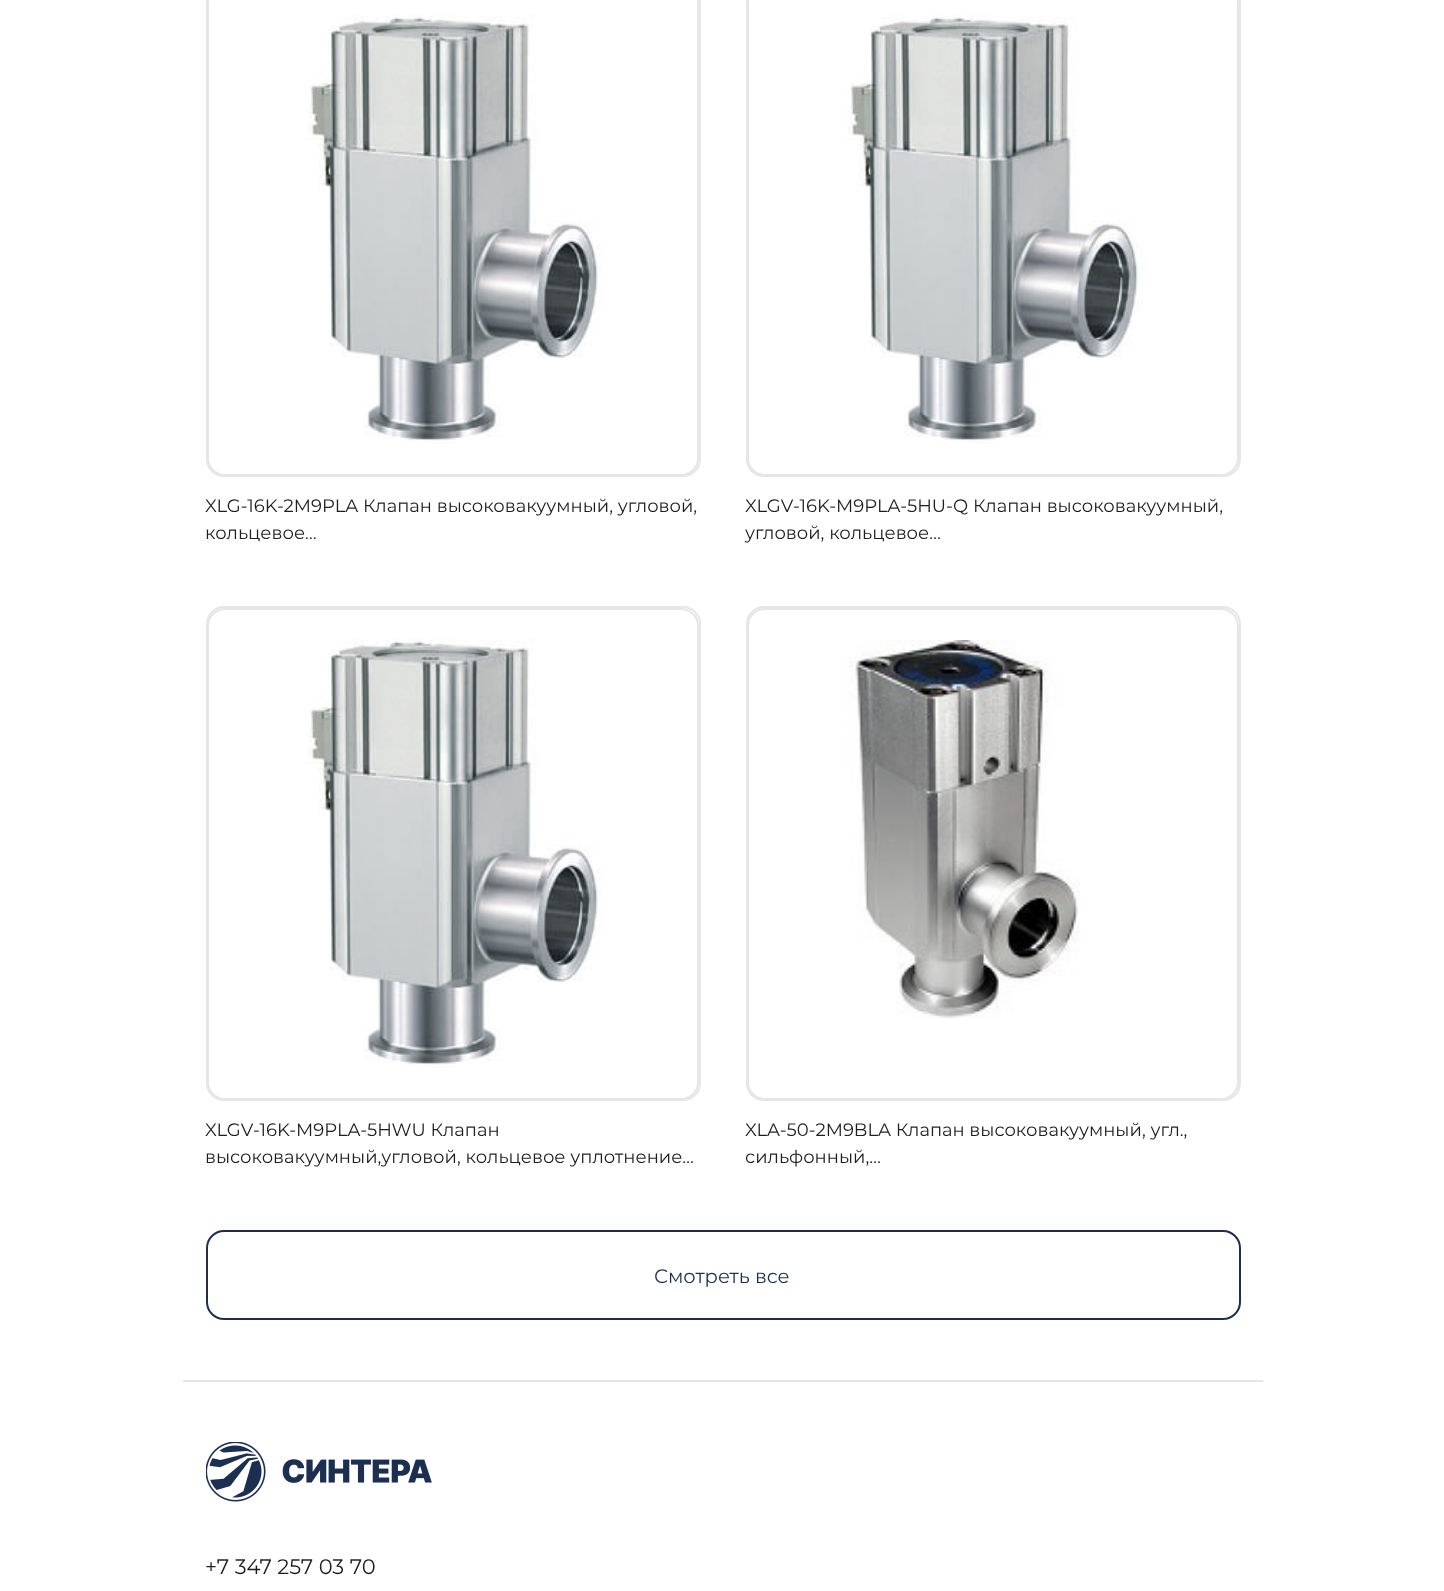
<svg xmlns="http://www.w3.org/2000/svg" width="1444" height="1591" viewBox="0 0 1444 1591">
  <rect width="100%" height="100%" fill="rgb(255,255,255)"/>
  <rect x="207" y="-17" width="493" height="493" rx="17" fill="none" stroke="rgb(230,230,230)" stroke-width="2"/>
  <rect x="208" y="-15" width="490" height="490" rx="17" fill="none" stroke="rgb(230,230,230)" stroke-width="2"/>
  <image x="307" y="15" width="296" height="429" href="pic1.png"/>
  <g font-family="Montserrat" font-size="18" fill="rgb(29,30,32)">
    <text>
      <tspan x="205" y="512">XLG-16K-2M9PLA Клапан высоковакуумный, угловой,</tspan>
      <tspan x="205" y="539">кольцевое…</tspan>
    </text>
  </g>
  <rect x="747" y="-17" width="493" height="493" rx="17" fill="none" stroke="rgb(230,230,230)" stroke-width="2"/>
  <rect x="748" y="-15" width="490" height="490" rx="17" fill="none" stroke="rgb(230,230,230)" stroke-width="2"/>
  <image x="847" y="15" width="296" height="429" href="pic1.png"/>
  <g font-family="Montserrat" font-size="18" fill="rgb(29,30,32)">
    <text>
      <tspan x="745" y="512">XLGV-16K-M9PLA-5HU-Q Клапан высоковакуумный,</tspan>
      <tspan x="745" y="539">угловой, кольцевое…</tspan>
    </text>
  </g>
  <rect x="207" y="607" width="493" height="493" rx="17" fill="none" stroke="rgb(230,230,230)" stroke-width="2"/>
  <rect x="208" y="609" width="490" height="490" rx="17" fill="none" stroke="rgb(230,230,230)" stroke-width="2"/>
  <image x="307" y="639" width="296" height="429" href="pic1.png"/>
  <g font-family="Montserrat" font-size="18" fill="rgb(29,30,32)">
    <text>
      <tspan x="205" y="1136">XLGV-16K-M9PLA-5HWU Клапан</tspan>
      <tspan x="205" y="1163">высоковакуумный,угловой, кольцевое уплотнение…</tspan>
    </text>
  </g>
  <rect x="747" y="607" width="493" height="493" rx="17" fill="none" stroke="rgb(230,230,230)" stroke-width="2"/>
  <rect x="748" y="609" width="490" height="490" rx="17" fill="none" stroke="rgb(230,230,230)" stroke-width="2"/>
  <image x="846" y="640" width="234" height="379" href="pic2.png"/>
  <g font-family="Montserrat" font-size="18" fill="rgb(29,30,32)">
    <text>
      <tspan x="745" y="1136">XLA-50-2M9BLA Клапан высоковакуумный, угл.,</tspan>
      <tspan x="745" y="1163">сильфонный,…</tspan>
    </text>
  </g>
  <rect x="207" y="1231" width="1033" height="88" rx="17" fill="none" stroke="rgb(29,47,81)" stroke-width="2"/>
  <text x="654" y="1283" font-family="Montserrat" font-size="19.5" fill="rgb(29,47,81)">Смотреть все</text>
  <rect x="183" y="1380" width="1080" height="2" fill="rgb(230,230,230)"/>
  <image x="206" y="1442" width="226" height="60" href="pic3.png"/>
  <text x="205" y="1574" font-family="Montserrat" font-size="21" fill="rgb(29,30,32)">+7 347 257 03 70</text>
</svg>
